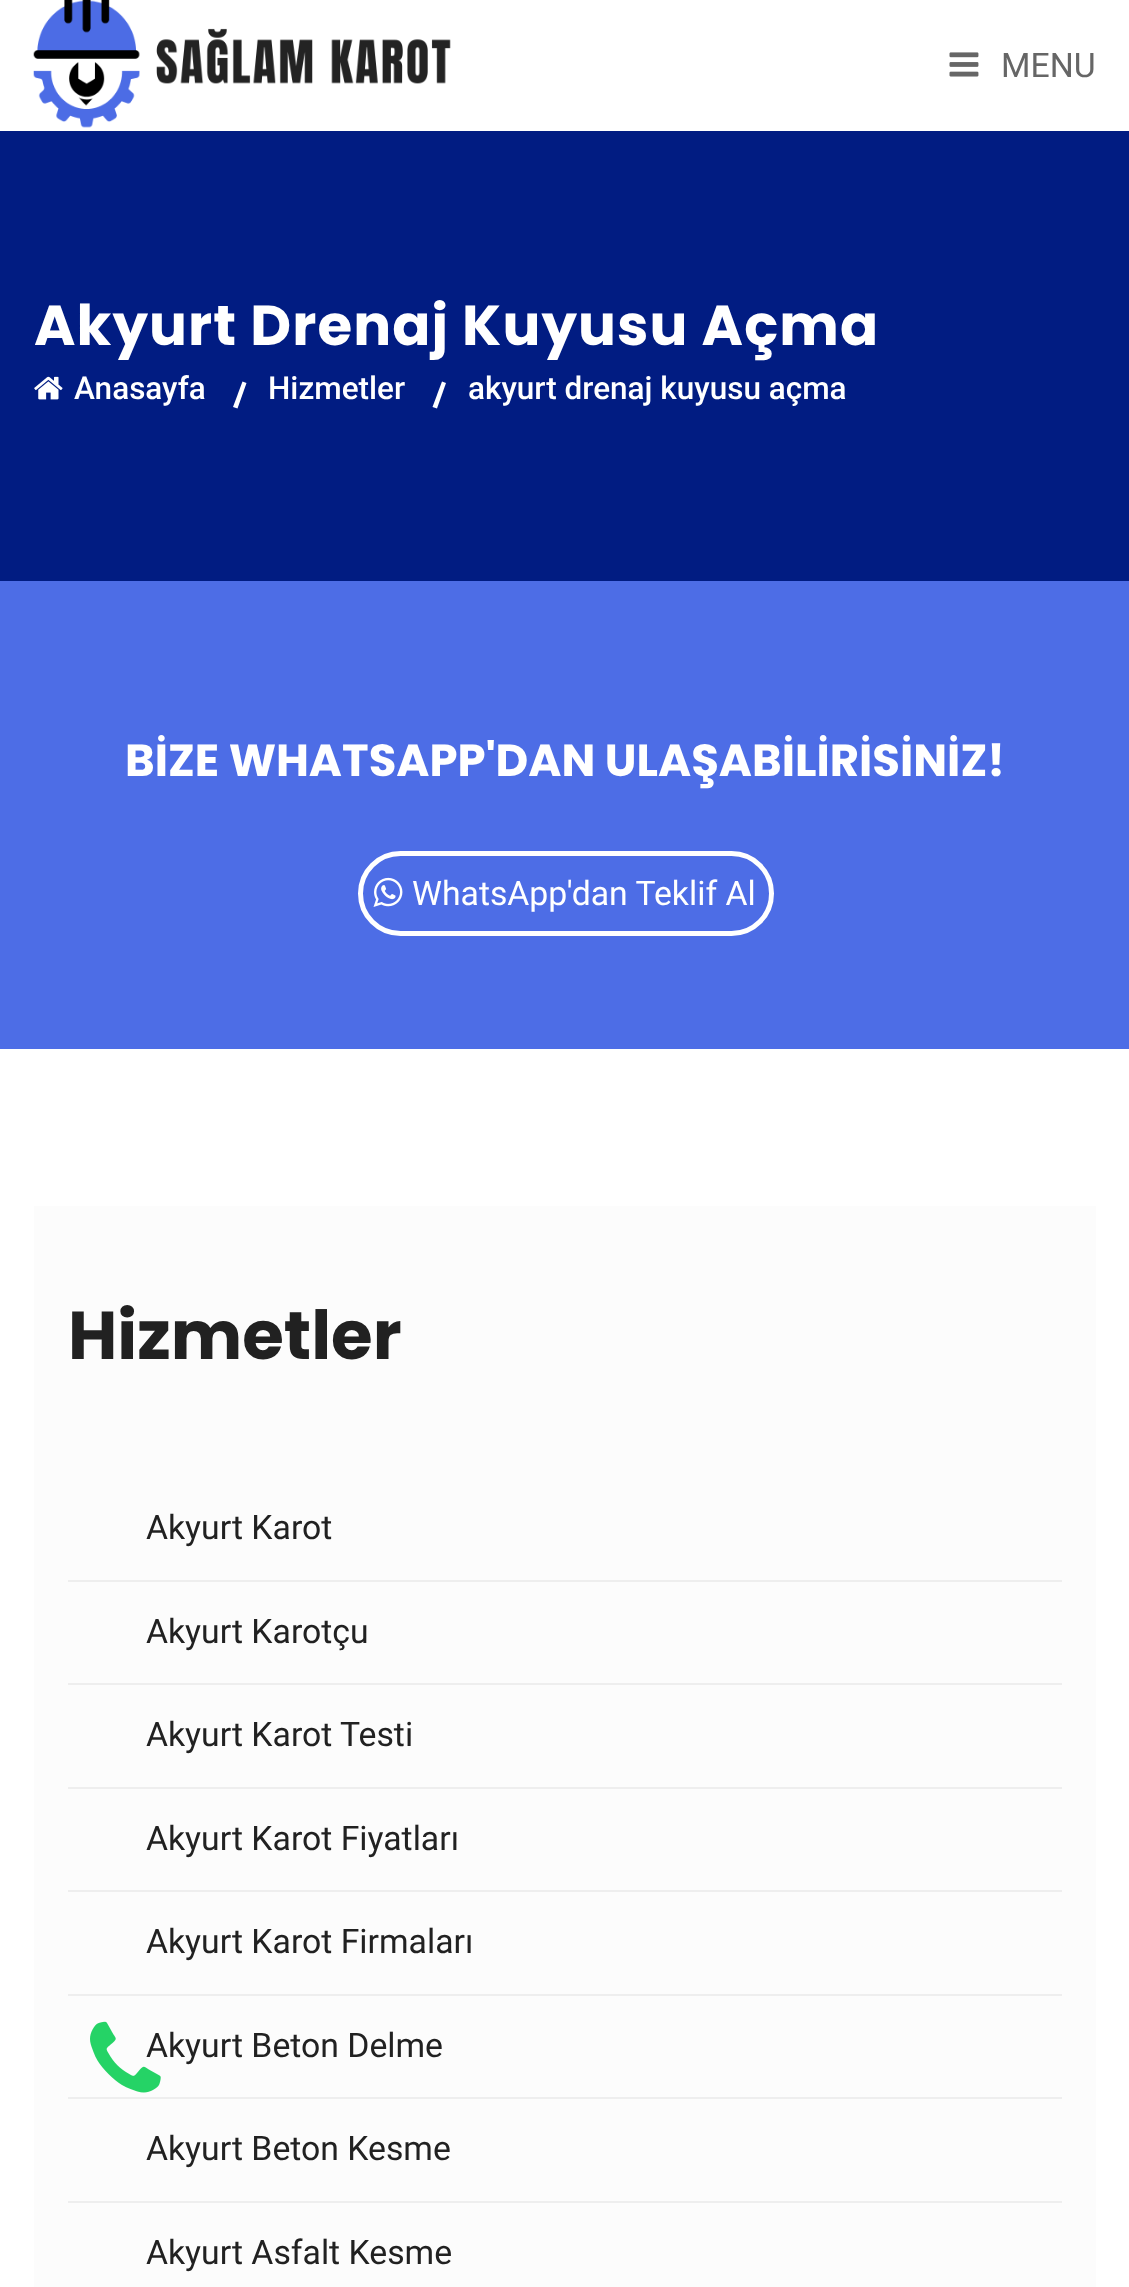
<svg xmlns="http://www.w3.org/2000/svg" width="1129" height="2287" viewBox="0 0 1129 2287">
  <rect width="100%" height="100%" fill="rgb(255,255,255)"/>
  <image x="33" y="0" width="418" height="128" href="pic1.png"/>
  <image x="949" y="52" width="30" height="25" href="pic2.png"/>
  <text x="1001" y="77" font-family="Roboto" font-size="33.75" fill="rgb(102,102,102)">MENU</text>
  <rect x="34" y="1206" width="1062" height="1081" fill="rgb(252,252,252)"/>
  <text x="146" y="2057" font-family="Roboto" font-size="33.75" fill="rgb(33,33,33)">Akyurt Beton Delme</text>
  <image x="90" y="2021" width="71" height="72" href="pic3.png"/>
  <rect x="0" y="131" width="1129" height="450" fill="rgb(1,28,130)"/>
  <text x="34" y="345" font-family="Poppins" font-size="56.25" font-weight="bold" letter-spacing="1.1" fill="rgb(255,255,255)">Akyurt Drenaj Kuyusu Açma</text>
  <image x="34" y="376" width="29" height="24" href="pic4.png"/>
  <text x="74" y="399" font-family="Roboto" font-size="31.5" font-weight="500" fill="rgb(255,255,255)">Anasayfa</text>
  <path d="M242.5 381.5L246.5 383L237.5 408.5L233 407Z" fill="rgb(255,255,255)"/>
  <text x="268" y="399" font-family="Roboto" font-size="31.5" font-weight="500" fill="rgb(255,255,255)">Hizmetler</text>
  <path d="M442 381.5L446 383L437 408.5L432.5 407Z" fill="rgb(255,255,255)"/>
  <text x="468" y="399" font-family="Roboto" font-size="31.5" font-weight="500" fill="rgb(255,255,255)">akyurt drenaj kuyusu açma</text>
  <rect x="0" y="581" width="1129" height="468" fill="rgb(77,109,230)"/>
  <text x="125" y="776" font-family="Poppins" font-size="45" font-weight="bold" fill="rgb(255,255,255)">BİZE WHATSAPP'DAN ULAŞABİLİRİSİNİZ!</text>
  <rect x="360.5" y="853.5" width="411" height="80" rx="40" fill="none" stroke="rgb(255,255,255)" stroke-width="5"/>
  <image x="373" y="877" width="30" height="30" href="pic5.png"/>
  <text x="412" y="905" font-family="Roboto" font-size="33.75" fill="rgb(255,255,255)">WhatsApp'dan Teklif Al</text>
  <text x="68" y="1359" font-family="Poppins" font-size="67.5" font-weight="bold" fill="rgb(33,33,33)">Hizmetler</text>
  <rect x="68" y="1580" width="994" height="2" fill="rgb(238,238,238)"/>
  <text x="146" y="1539" font-family="Roboto" font-size="33.75" fill="rgb(33,33,33)">Akyurt Karot</text>
  <rect x="68" y="1683" width="994" height="2" fill="rgb(238,238,238)"/>
  <text x="146" y="1643" font-family="Roboto" font-size="33.75" fill="rgb(33,33,33)">Akyurt Karotçu</text>
  <rect x="68" y="1787" width="994" height="2" fill="rgb(238,238,238)"/>
  <text x="146" y="1746" font-family="Roboto" font-size="33.75" fill="rgb(33,33,33)">Akyurt Karot Testi</text>
  <rect x="68" y="1890" width="994" height="2" fill="rgb(238,238,238)"/>
  <text x="146" y="1850" font-family="Roboto" font-size="33.75" fill="rgb(33,33,33)">Akyurt Karot Fiyatları</text>
  <rect x="68" y="1994" width="994" height="2" fill="rgb(238,238,238)"/>
  <text x="146" y="1953" font-family="Roboto" font-size="33.75" fill="rgb(33,33,33)">Akyurt Karot Firmaları</text>
  <rect x="68" y="2097" width="994" height="2" fill="rgb(238,238,238)"/>
  <rect x="68" y="2201" width="994" height="2" fill="rgb(238,238,238)"/>
  <g font-family="Roboto" font-size="33.75" fill="rgb(33,33,33)">
    <text x="146" y="2160">Akyurt Beton Kesme</text>
    <text x="146" y="2264">Akyurt Asfalt Kesme</text>
  </g>
</svg>
